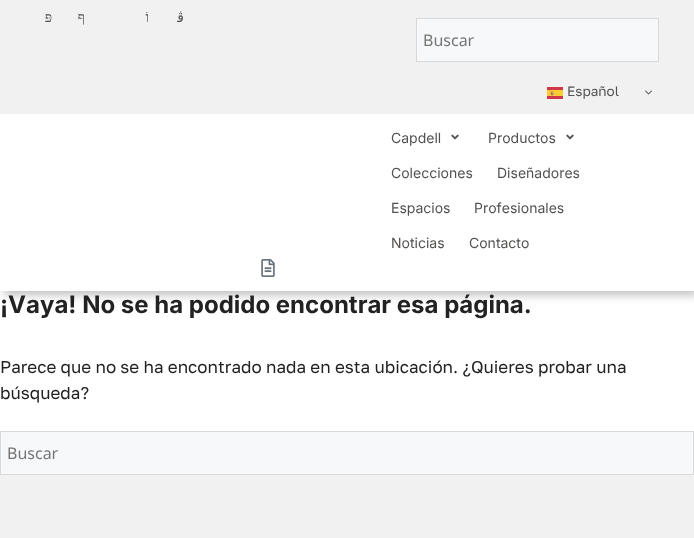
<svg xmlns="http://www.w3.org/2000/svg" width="694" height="538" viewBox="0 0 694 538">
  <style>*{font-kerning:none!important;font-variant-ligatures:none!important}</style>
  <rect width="100%" height="100%" fill="rgb(255,255,255)"/>
  <rect x="4" y="118" width="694" height="177" fill="rgba(0,0,0,0.25)" filter="blur(5px)"/>
  <rect x="0" y="0" width="694" height="114" fill="rgb(241,241,241)"/>
  <g font-family="Liberation Serif" font-size="14" direction="rtl" fill="rgb(84,82,80)">
    <text x="52" y="22">פּ</text>
    <text x="85" y="22">ףּ</text>
    <text x="149" y="22">וֹ</text>
  </g>
  <text x="184" y="22" font-family="DejaVu Sans" font-size="14" direction="rtl" fill="rgb(84,82,80)">ﭬ</text>
  <rect x="416.5" y="18.5" width="242" height="43" fill="rgb(247,248,249)" stroke="rgb(216,216,216)"/>
  <text x="423" y="46" font-family="Noto Sans" font-size="16" fill="rgb(117,117,117)">Buscar</text>
  <image x="547" y="87" width="16" height="12" href="pic1.png"/>
  <text x="567" y="96" font-family="Golos Text" font-size="13.5" fill="rgb(84,82,80)">Español</text>
  <image x="645" y="90" width="7" height="5" href="pic2.png"/>
  <rect x="0" y="114" width="694" height="177" fill="rgb(255,255,255)"/>
  <text x="391" y="143" font-family="Inter" font-size="14" fill="rgb(84,82,80)">Capdell</text>
  <image x="451" y="134" width="8" height="6" href="pic3.png"/>
  <text x="488" y="143" font-family="Inter" font-size="14" fill="rgb(84,82,80)">Productos</text>
  <image x="566" y="134" width="8" height="6" href="pic3.png"/>
  <g font-family="Inter" font-size="14" fill="rgb(84,82,80)">
    <text x="391" y="178">Colecciones</text>
    <text x="497" y="178">Diseñadores</text>
    <text x="391" y="213">Espacios</text>
    <text x="474" y="213">Profesionales</text>
    <text x="391" y="248">Noticias</text>
    <text x="469" y="248">Contacto</text>
  </g>
  <image x="261" y="259" width="14" height="18" href="pic4.png"/>
  <text x="0" y="313" font-family="Inter" font-size="24" font-weight="bold" fill="rgb(34,34,34)">¡Vaya! No se ha podido encontrar esa página.</text>
  <g font-family="Golos Text" font-size="17" fill="rgb(34,34,34)">
    <text>
      <tspan x="0" y="373">Parece que no se ha encontrado nada en esta ubicación. ¿Quieres probar una</tspan>
      <tspan x="0" y="399">búsqueda?</tspan>
    </text>
  </g>
  <rect x="0.5" y="431.5" width="693" height="43" fill="rgb(247,248,249)" stroke="rgb(216,216,216)"/>
  <text x="7" y="459" font-family="Noto Sans" font-size="16" fill="rgb(117,117,117)">Buscar</text>
  <rect x="0" y="475" width="694" height="63" fill="rgb(241,241,241)"/>
</svg>
